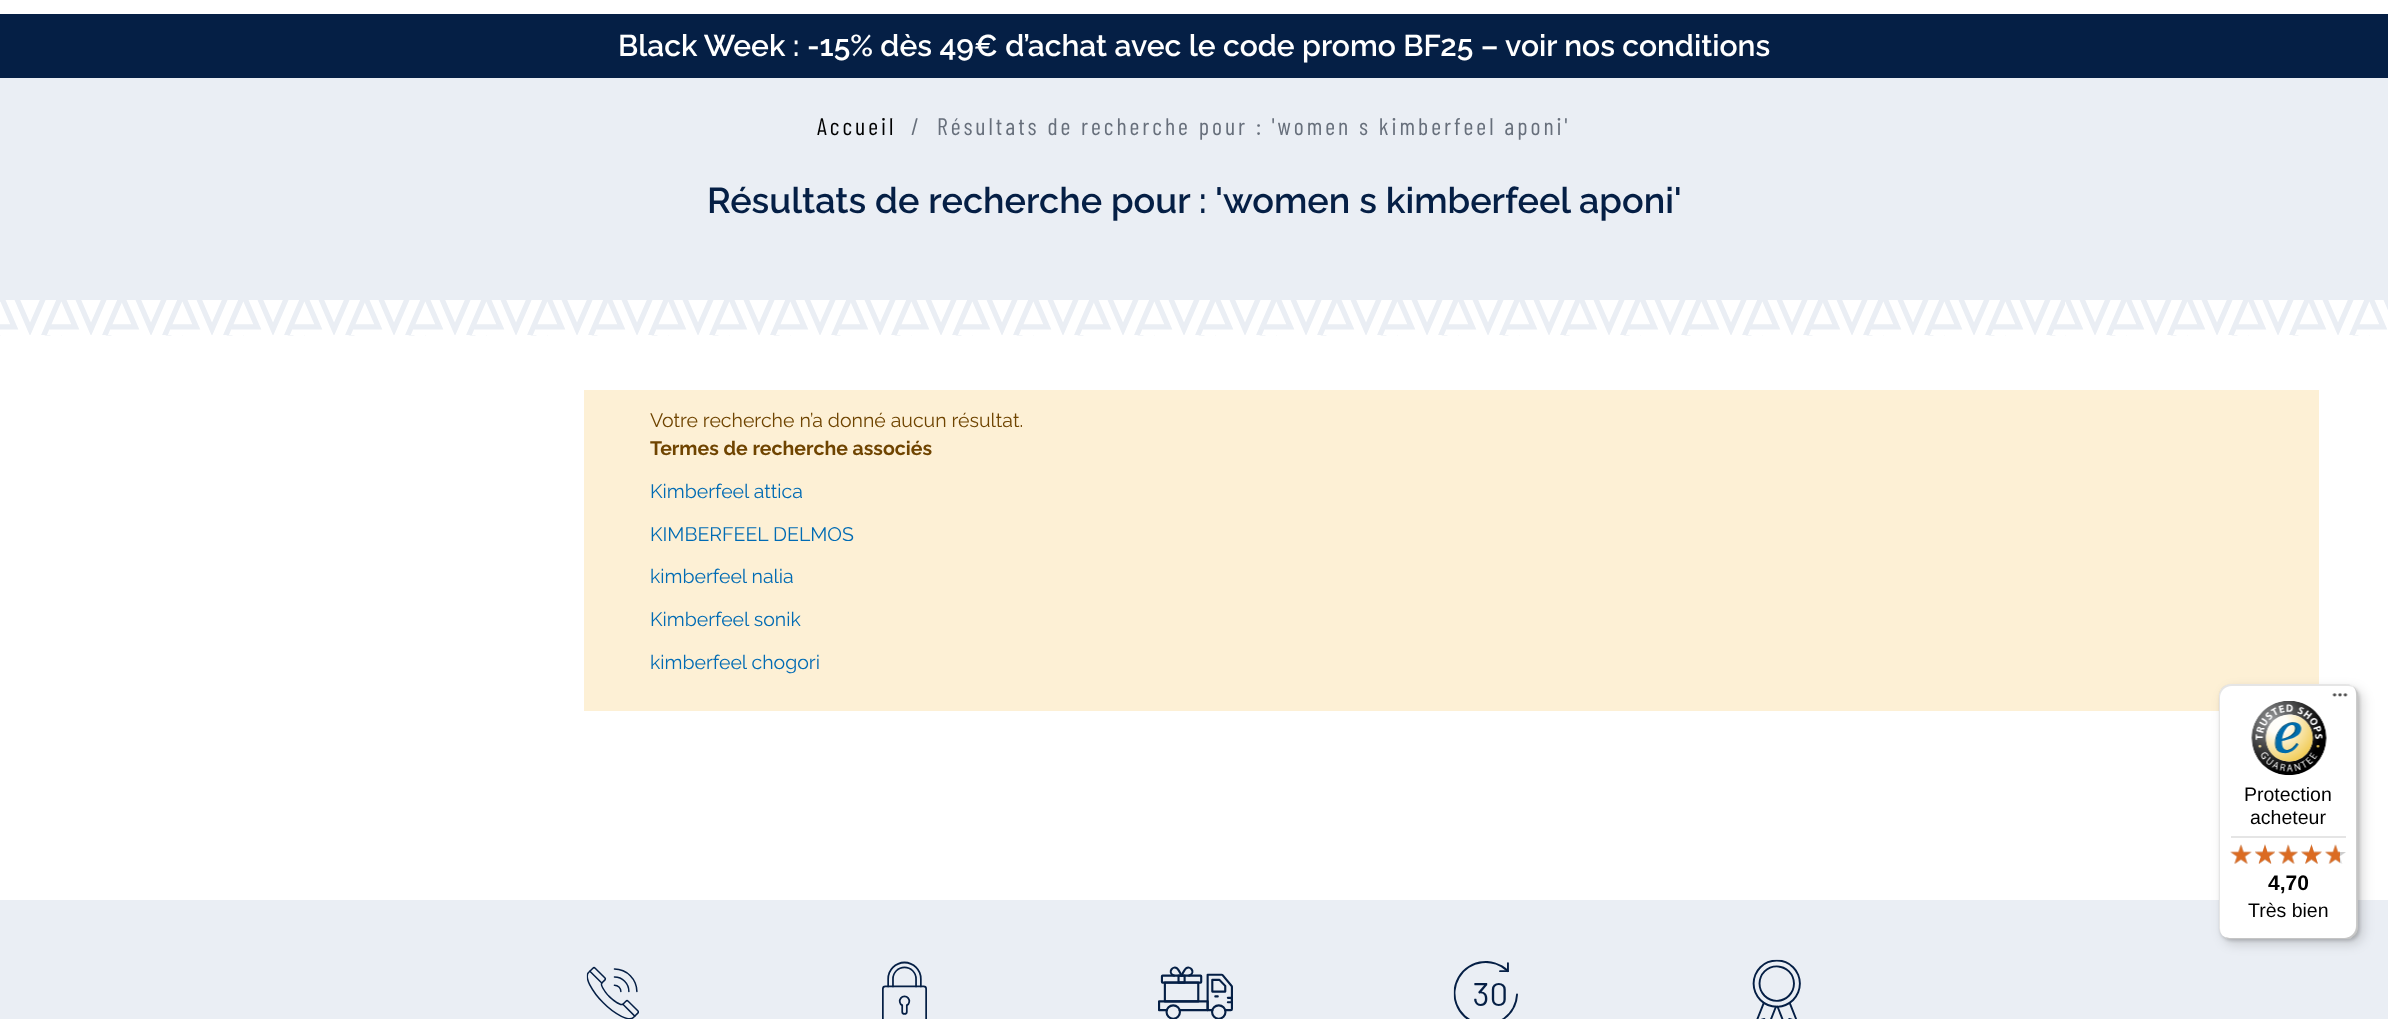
<svg xmlns="http://www.w3.org/2000/svg" width="2388" height="1019" viewBox="0 0 2388 1019">
  <rect width="100%" height="100%" fill="rgb(255,255,255)"/>
  <rect x="0" y="14" width="2388" height="64" fill="rgb(5,31,69)"/>
  <text x="618" y="56" font-family="Raleway" font-size="30" font-weight="600" fill="rgb(255,255,255)">Black Week : -15% dès 49€ d’achat avec le code promo BF25 – voir nos conditions</text>
  <rect x="0" y="78" width="2388" height="222" fill="rgb(234,238,244)"/>
  <text x="817" y="135" font-family="Barlow Condensed" font-size="24" letter-spacing="3" fill="rgb(0,0,0)">Accueil</text>
  <g font-family="Barlow Condensed" font-size="24" letter-spacing="3" fill="rgb(103,111,123)">
    <text x="911" y="135">/</text>
    <text x="937" y="135">Résultats de recherche pour : 'women s kimberfeel aponi'</text>
  </g>
  <text x="707" y="213" font-family="Raleway" font-size="36" font-weight="600" fill="rgb(5,31,69)">Résultats de recherche pour : 'women s kimberfeel aponi'</text>
  <image x="0" y="300" width="2388" height="36" href="pic1.png"/>
  <rect x="584" y="390" width="1735" height="321" fill="rgb(253,240,213)"/>
  <text x="650" y="427" font-family="Raleway" font-size="19.5" fill="rgb(111,68,0)">Votre recherche n’a donné aucun résultat.</text>
  <text x="650" y="455" font-family="Raleway" font-size="19.5" font-weight="bold" fill="rgb(111,68,0)">Termes de recherche associés</text>
  <g font-family="Raleway" font-size="19.5" fill="rgb(0,107,180)">
    <text x="650" y="498">Kimberfeel attica</text>
    <text x="650" y="541">KIMBERFEEL DELMOS</text>
    <text x="650" y="583">kimberfeel nalia</text>
    <text x="650" y="626">Kimberfeel sonik</text>
    <text x="650" y="669">kimberfeel chogori</text>
  </g>
  <rect x="0" y="900" width="2388" height="119" fill="rgb(234,238,244)"/>
  <image x="586" y="966" width="53" height="53" href="pic2.png"/>
  <image x="882" y="961" width="45" height="58" href="pic3.png"/>
  <image x="1158" y="966" width="75" height="53" href="pic4.png"/>
  <image x="1453" y="961" width="65" height="58" href="pic5.png"/>
  <image x="1752" y="959" width="49" height="60" href="pic6.png"/>
  <rect x="2223" y="689" width="140" height="255" rx="12" fill="rgba(0,0,0,0.15)" filter="blur(6px)"/>
  <rect x="2220" y="686" width="140" height="255" rx="12" fill="rgba(0,0,0,0.15)" filter="blur(1.5px)"/>
  <rect x="2219" y="684" width="139" height="255" rx="12" fill="rgb(255,255,255)"/>
  <path d="M2232 686H2348C2351 686 2353 687 2356 689C2353 686 2350 684 2346 684H2231C2224 684 2219 689 2219 696V927C2219 930 2220 933 2222 935C2221 933 2220 931 2220 928V698C2220 691 2225 686 2232 686Z" fill="rgba(0,0,0,0.1)"/>
  <path d="M2225 937C2226 938 2229 939 2231 939H2346C2353 939 2358 934 2358 927V696C2358 692 2356 689 2353 686C2355 689 2356 691 2356 694V926C2356 932 2351 938 2344 938H2229Z" fill="rgba(0,0,0,0.2)"/>
  <path d="M2223 936C2225 938 2228 939 2231 939H2346C2353 939 2358 934 2358 927V696C2358 693 2357 690 2355 688C2356 690 2357 692 2357 695V926C2357 933 2352 938 2345 938H2230C2227 938 2225 937 2223 936Z" fill="rgba(50,50,50,0.2)"/>
  <path d="M2223 936C2225 938 2228 939 2231 939H2346C2353 939 2358 934 2358 927V696C2358 692 2356 689 2354 687C2356 689 2357 692 2357 695V926C2357 933 2352 938 2345 938H2230C2227 938 2225 937 2223 936Z" fill="rgba(255,255,255,0.3)"/>
  <image x="2332" y="693" width="16" height="4" href="pic7.png"/>
  <image x="2251" y="701" width="76" height="75" href="pic8.png"/>
  <g font-family="Liberation Sans" font-size="19.5" fill="rgb(0,0,0)">
    <text x="2244" y="801">Protection</text>
    <text x="2250" y="824">acheteur</text>
  </g>
  <rect x="2231" y="836" width="115" height="2" fill="rgb(229,229,229)"/>
  <image x="2230" y="845" width="22" height="19" href="pic9.png"/>
  <image x="2255" y="844" width="20" height="20" href="pic10.png"/>
  <image x="2278" y="845" width="20" height="19" href="pic11.png"/>
  <image x="2301" y="844" width="21" height="20" href="pic12.png"/>
  <image x="2325" y="845" width="21" height="19" href="pic13.png"/>
  <image x="2230" y="844" width="22" height="20" href="pic14.png"/>
  <image x="2255" y="844" width="20" height="20" href="pic15.png"/>
  <image x="2278" y="844" width="20" height="20" href="pic16.png"/>
  <image x="2301" y="844" width="21" height="20" href="pic17.png"/>
  <image x="2325" y="844" width="15" height="20" href="pic18.png"/>
  <text x="2268" y="890" font-family="Liberation Sans" font-size="21" font-weight="bold" fill="rgb(0,0,0)">4,70</text>
  <text x="2248" y="917" font-family="Liberation Sans" font-size="19.5" fill="rgb(0,0,0)">Très bien</text>
</svg>
